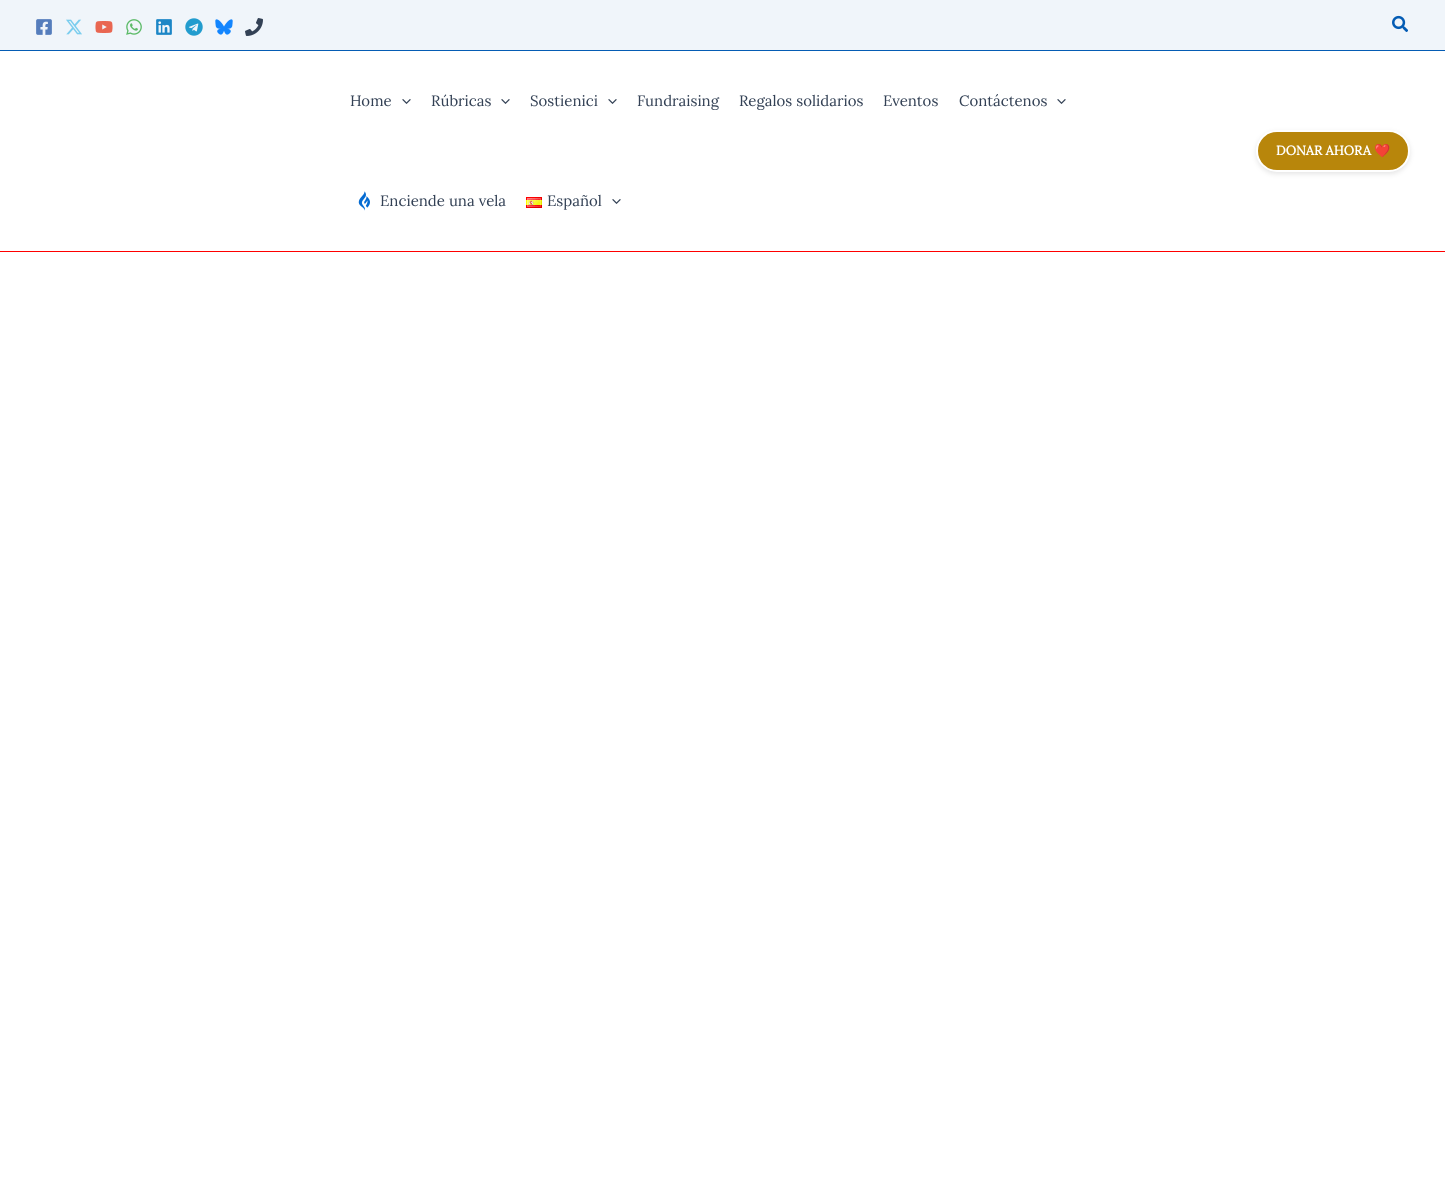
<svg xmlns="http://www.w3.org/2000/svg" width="1445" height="1182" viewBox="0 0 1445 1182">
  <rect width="100%" height="100%" fill="rgb(255,255,255)"/>
  <rect x="0" y="0" width="1445" height="50" fill="rgb(240,245,250)"/>
  <rect x="0" y="50" width="1445" height="1" fill="rgb(4,92,180)"/>
  <image x="36" y="19" width="16" height="16" href="pic1.png"/>
  <image x="66" y="19" width="16" height="16" href="pic2.png"/>
  <image x="95" y="21" width="18" height="12" href="pic3.png"/>
  <image x="126" y="19" width="16" height="16" href="pic4.png"/>
  <image x="156" y="19" width="16" height="16" href="pic5.png"/>
  <image x="185" y="18" width="18" height="18" href="pic6.png"/>
  <image x="215" y="19" width="18" height="16" href="pic7.png"/>
  <image x="245" y="18" width="18" height="18" href="pic8.png"/>
  <image x="1392" y="15" width="16" height="17" href="pic9.png"/>
  <rect x="0" y="251" width="1445" height="1" fill="rgb(255,0,0)"/>
  <text x="350" y="106" font-family="Lora" font-size="15" fill="rgb(51,65,85)">Home</text>
  <image x="402" y="99" width="9" height="5" href="pic10.png"/>
  <text x="431" y="106" font-family="Lora" font-size="15" fill="rgb(51,65,85)">Rúbricas</text>
  <image x="501" y="99" width="9" height="5" href="pic10.png"/>
  <text x="530" y="106" font-family="Lora" font-size="15" fill="rgb(51,65,85)">Sostienici</text>
  <image x="608" y="99" width="9" height="5" href="pic10.png"/>
  <g font-family="Lora" font-size="15" fill="rgb(51,65,85)">
    <text x="637" y="106">Fundraising</text>
    <text x="739" y="106">Regalos solidarios</text>
    <text x="883" y="106">Eventos</text>
    <text x="959" y="106">Contáctenos</text>
  </g>
  <image x="1057" y="99" width="9" height="5" href="pic10.png"/>
  <image x="358" y="191" width="12" height="20" href="pic11.png"/>
  <text x="380" y="206" font-family="Lora" font-size="15" fill="rgb(51,65,85)">Enciende una vela</text>
  <image x="526" y="197" width="16" height="11" href="pic12.png"/>
  <text x="547" y="206" font-family="Lora" font-size="15" fill="rgb(51,65,85)">Español</text>
  <image x="612" y="199" width="9" height="5" href="pic10.png"/>
  <rect x="1256" y="132" width="154" height="42" rx="21" fill="rgba(0,0,0,0.1)" filter="blur(2.5px)"/>
  <rect x="1257" y="131" width="152" height="40" rx="20" fill="rgb(184,134,11)" stroke="rgb(255,255,255)" stroke-width="2"/>
  <text x="1276" y="155" font-family="Lora" font-size="13" font-weight="bold" fill="rgb(255,255,255)">DONAR AHORA</text>
  <text x="1374" y="155" font-family="Noto Color Emoji" font-size="13" font-weight="bold" fill="rgb(255,255,255)">❤️</text>
</svg>
